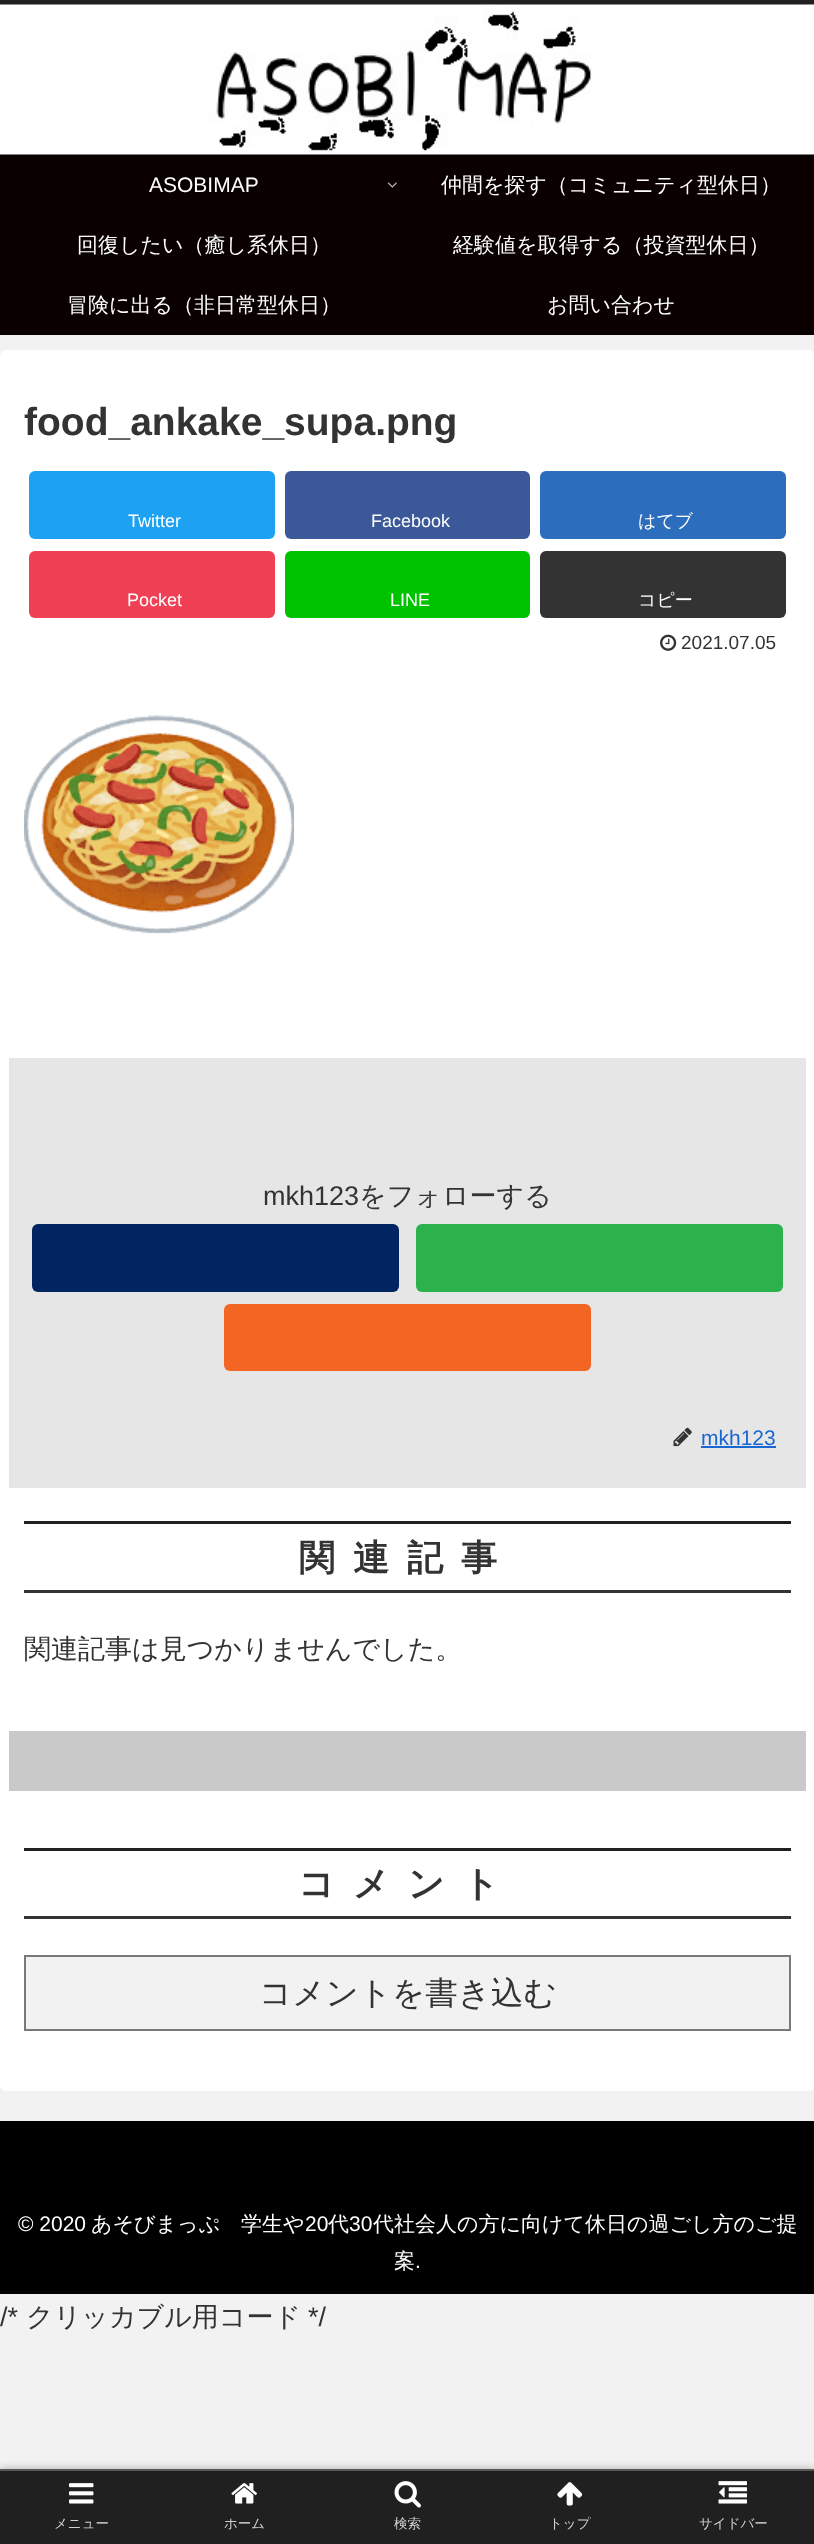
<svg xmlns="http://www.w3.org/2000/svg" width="814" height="2544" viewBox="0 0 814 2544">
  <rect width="100%" height="100%" fill="rgb(242,242,242)"/>
  <rect x="0" y="154" width="814" height="1" fill="rgb(0,0,0)"/>
  <rect x="0" y="0" width="814" height="5" fill="rgb(32,32,32)"/>
  <image x="0" y="4" width="814" height="151" href="pic1.png"/>
  <rect x="0" y="155" width="814" height="180" fill="rgb(10,0,0)"/>
  <text x="149" y="192" font-family="Liberation Sans" font-size="21" fill="rgb(255,255,255)">ASOBIMAP</text>
  <image x="387" y="182" width="10" height="6" href="pic2.png"/>
  <g font-family="WenQuanYi Zen Hei" font-size="21" font-weight="500" fill="rgb(255,255,255)">
    <text x="441" y="192">仲間を探す（コミュニティ型休日）</text>
    <text x="77" y="252">回復したい（癒し系休日）</text>
    <text x="453" y="252">経験値を取得する（投資型休日）</text>
    <text x="67" y="312">冒険に出る（非日常型休日）</text>
    <text x="547" y="312">お問い合わせ</text>
  </g>
  <rect x="0" y="350" width="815" height="1741" rx="6" fill="rgb(255,255,255)"/>
  <text x="24" y="435" font-family="Liberation Sans" font-size="39" font-weight="bold" fill="rgb(51,51,51)">food_ankake_supa.png</text>
  <rect x="29" y="471" width="246" height="68" rx="6" fill="rgb(29,161,242)"/>
  <text x="128" y="527" font-family="Liberation Sans" font-size="18" fill="rgb(255,255,255)">Twitter</text>
  <rect x="285" y="471" width="245" height="68" rx="6" fill="rgb(59,89,152)"/>
  <text x="371" y="527" font-family="Liberation Sans" font-size="18" fill="rgb(255,255,255)">Facebook</text>
  <rect x="540" y="471" width="246" height="68" rx="6" fill="rgb(44,110,189)"/>
  <text x="638" y="527" font-family="WenQuanYi Zen Hei" font-size="18" font-weight="500" fill="rgb(255,255,255)">はてブ</text>
  <rect x="29" y="551" width="246" height="67" rx="6" fill="rgb(239,64,86)"/>
  <text x="127" y="606" font-family="Liberation Sans" font-size="18" fill="rgb(255,255,255)">Pocket</text>
  <rect x="285" y="551" width="245" height="67" rx="6" fill="rgb(0,195,0)"/>
  <text x="390" y="606" font-family="Liberation Sans" font-size="18" fill="rgb(255,255,255)">LINE</text>
  <rect x="540" y="551" width="246" height="67" rx="6" fill="rgb(51,51,51)"/>
  <text x="638" y="606" font-family="WenQuanYi Zen Hei" font-size="18" font-weight="500" fill="rgb(255,255,255)">コピー</text>
  <image x="660" y="634" width="17" height="17" href="pic3.png"/>
  <text x="681" y="649" font-family="Liberation Sans" font-size="19" fill="rgb(51,51,51)">2021.07.05</text>
  <image x="24" y="715" width="270" height="219" href="pic4.png"/>
  <rect x="9" y="1058" width="797" height="430" fill="rgb(230,230,230)"/>
  <text x="263" y="1205" font-family="Liberation Sans" font-size="27" fill="rgb(51,51,51)">mkh123</text>
  <text x="359" y="1205" font-family="WenQuanYi Zen Hei" font-size="27" font-weight="500" fill="rgb(51,51,51)">をフォローする</text>
  <rect x="32" y="1224" width="367" height="68" rx="6" fill="rgb(0,37,97)"/>
  <rect x="416" y="1224" width="367" height="68" rx="6" fill="rgb(43,178,76)"/>
  <rect x="224" y="1304" width="367" height="67" rx="6" fill="rgb(242,101,34)"/>
  <image x="673" y="1427" width="19" height="20" href="pic5.png"/>
  <text x="701" y="1445" font-family="Liberation Sans" font-size="21" fill="rgb(25,103,210)">mkh123</text>
  <rect x="701" y="1446" width="75" height="2" fill="rgb(25,103,210)"/>
  <rect x="24" y="1521" width="767" height="3" fill="rgb(32,32,32)"/>
  <rect x="24" y="1590" width="767" height="3" fill="rgb(51,51,51)"/>
  <text x="299" y="1570" font-family="WenQuanYi Zen Hei" font-size="36" font-weight="bold" letter-spacing="18" fill="rgb(51,51,51)">関連記事</text>
  <text x="24" y="1658" font-family="WenQuanYi Zen Hei" font-size="27" font-weight="500" fill="rgb(51,51,51)">関連記事は見つかりませんでした。</text>
  <rect x="9" y="1731" width="797" height="60" fill="rgb(201,201,201)"/>
  <rect x="24" y="1848" width="767" height="3" fill="rgb(32,32,32)"/>
  <rect x="24" y="1916" width="767" height="3" fill="rgb(51,51,51)"/>
  <text x="298" y="1896" font-family="WenQuanYi Zen Hei" font-size="36" font-weight="bold" letter-spacing="18" fill="rgb(51,51,51)">コメント</text>
  <rect x="25" y="1956" width="765" height="74" fill="rgb(242,242,242)" stroke="rgb(121,121,121)" stroke-width="2"/>
  <text x="259" y="2004" font-family="WenQuanYi Zen Hei" font-size="32.5" font-weight="500" fill="rgb(51,51,51)">コメントを書き込む</text>
  <rect x="0" y="2121" width="814" height="173" fill="rgb(0,0,0)"/>
  <text x="18" y="2231" font-family="Liberation Sans" font-size="21" fill="rgb(255,255,255)">© 2020</text>
  <text x="91" y="2231" font-family="WenQuanYi Zen Hei" font-size="21" font-weight="500" fill="rgb(255,255,255)">あそびまっぷ　学生や</text>
  <text x="305" y="2231" font-family="Liberation Sans" font-size="21" fill="rgb(255,255,255)">20</text>
  <text x="328" y="2231" font-family="WenQuanYi Zen Hei" font-size="21" font-weight="500" fill="rgb(255,255,255)">代</text>
  <text x="349" y="2231" font-family="Liberation Sans" font-size="21" fill="rgb(255,255,255)">30</text>
  <g font-family="WenQuanYi Zen Hei" font-size="21" font-weight="500" fill="rgb(255,255,255)">
    <text x="373" y="2231">代社会人の方に向けて休日の過ごし方のご提</text>
    <text x="394" y="2268">案</text>
  </g>
  <text x="415" y="2268" font-family="Liberation Sans" font-size="21" fill="rgb(255,255,255)">.</text>
  <text x="0" y="2326" font-family="Liberation Sans" font-size="27" fill="rgb(51,51,51)">/*</text>
  <text x="26" y="2326" font-family="WenQuanYi Zen Hei" font-size="27" font-weight="500" fill="rgb(51,51,51)">クリッカブル用コード</text>
  <text x="308" y="2326" font-family="Liberation Sans" font-size="27" fill="rgb(51,51,51)">*/</text>
  <rect x="0" y="2469" width="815" height="75" fill="rgb(169,169,169)" filter="blur(4px)"/>
  <rect x="0" y="2471" width="814" height="73" fill="rgb(32,32,32)"/>
  <rect x="0" y="2469" width="814" height="2" fill="rgb(89,88,87)"/>
  <image x="69" y="2483" width="25" height="21" href="pic6.png"/>
  <text x="54" y="2528" font-family="WenQuanYi Zen Hei" font-size="13.5" font-weight="500" fill="rgb(210,210,210)">メニュー</text>
  <image x="231" y="2483" width="26" height="21" href="pic7.png"/>
  <text x="224" y="2528" font-family="WenQuanYi Zen Hei" font-size="13.5" font-weight="500" fill="rgb(210,210,210)">ホーム</text>
  <image x="394" y="2481" width="27" height="27" href="pic8.png"/>
  <text x="394" y="2528" font-family="WenQuanYi Zen Hei" font-size="13.5" font-weight="500" fill="rgb(210,210,210)">検索</text>
  <image x="557" y="2482" width="26" height="24" href="pic9.png"/>
  <text x="549" y="2528" font-family="WenQuanYi Zen Hei" font-size="13.5" font-weight="500" fill="rgb(210,210,210)">トップ</text>
  <image x="718" y="2481" width="29" height="23" href="pic10.png"/>
  <text x="699" y="2528" font-family="WenQuanYi Zen Hei" font-size="13.5" font-weight="500" fill="rgb(210,210,210)">サイドバー</text>
</svg>
